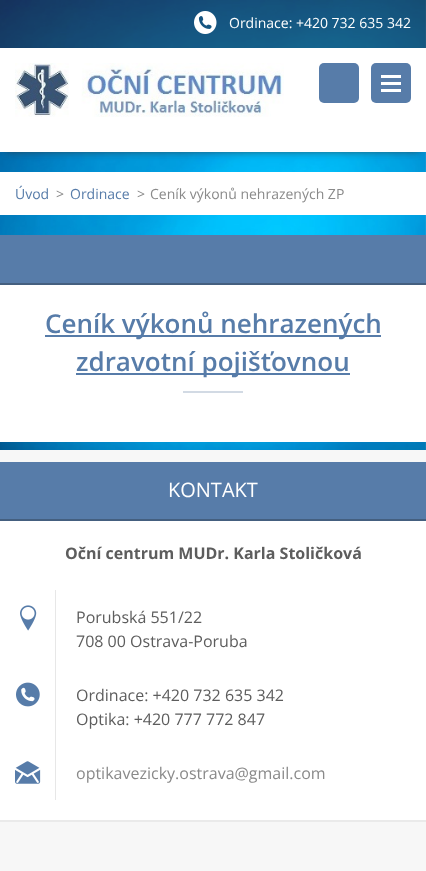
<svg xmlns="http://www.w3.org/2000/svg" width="426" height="871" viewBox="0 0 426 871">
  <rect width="100%" height="100%" fill="rgb(247,247,247)"/>
  <image x="0" y="0" width="426" height="450" href="pic1.png"/>
  <rect x="0" y="0" width="426" height="48" fill="rgba(53,53,53,0.4)"/>
  <image x="194" y="11" width="23" height="23" href="pic2.png"/>
  <text x="229" y="28" font-family="Open Sans" font-size="14" fill="rgb(255,255,255)">Ordinace: +420 732 635 342</text>
  <rect x="6" y="58" width="414" height="92" fill="rgb(53,53,53)" filter="blur(5px)"/>
  <rect x="0" y="48" width="426" height="104" fill="rgb(255,255,255)"/>
  <image x="15" y="63" width="269" height="54" href="pic3.png"/>
  <rect x="319" y="63" width="40" height="40" rx="5" fill="rgb(87,124,169)"/>
  <rect x="371" y="63" width="40" height="40" rx="5" fill="rgb(87,124,169)"/>
  <rect x="381" y="75" width="20" height="3" fill="rgb(255,255,255)"/>
  <rect x="381" y="82" width="20" height="3" fill="rgb(255,255,255)"/>
  <rect x="381" y="89" width="20" height="3" fill="rgb(255,255,255)"/>
  <rect x="0" y="172" width="426" height="43" fill="rgb(255,255,255)"/>
  <text x="15" y="199" font-family="Open Sans" font-size="14" fill="rgb(87,124,169)">Úvod</text>
  <text x="56" y="199" font-family="Open Sans" font-size="14" fill="rgb(138,138,138)">&gt;</text>
  <text x="70" y="199" font-family="Open Sans" font-size="14" fill="rgb(87,124,169)">Ordinace</text>
  <g font-family="Open Sans" font-size="14" fill="rgb(138,138,138)">
    <text x="137" y="199">&gt;</text>
    <text x="150" y="199">Ceník výkonů nehrazených ZP</text>
  </g>
  <rect x="0" y="285" width="426" height="157" fill="rgb(255,255,255)"/>
  <rect x="0" y="235" width="426" height="48" fill="rgb(87,124,169)"/>
  <rect x="0" y="283" width="426" height="2" fill="rgb(68,95,127)"/>
  <rect x="45" y="335" width="336" height="2" fill="rgb(87,124,169)"/>
  <text x="45" y="333" font-family="Open Sans" font-size="26" font-weight="600" fill="rgb(87,124,169)">Ceník výkonů nehrazených</text>
  <rect x="76" y="373" width="274" height="2" fill="rgb(87,124,169)"/>
  <text x="76" y="371" font-family="Open Sans" font-size="26" font-weight="600" fill="rgb(87,124,169)">zdravotní pojišťovnou</text>
  <rect x="183" y="391" width="60" height="2" fill="rgb(210,218,228)"/>
  <rect x="0" y="820" width="426" height="2" fill="rgb(234,234,234)"/>
  <rect x="0" y="521" width="426" height="299" fill="rgb(255,255,255)"/>
  <rect x="0" y="462" width="426" height="57" fill="rgb(87,124,169)"/>
  <rect x="0" y="519" width="426" height="2" fill="rgb(68,95,127)"/>
  <text x="168" y="497" font-family="Open Sans" font-size="20" fill="rgb(255,255,255)">KONTAKT</text>
  <text x="65" y="559" font-family="Open Sans" font-size="16" font-weight="bold" fill="rgb(93,93,93)">Oční centrum MUDr. Karla Stoličková</text>
  <image x="20" y="605" width="17" height="26" href="pic4.png"/>
  <rect x="55" y="590" width="1" height="210" fill="rgb(231,231,231)"/>
  <g font-family="Open Sans" font-size="16" fill="rgb(93,93,93)">
    <text>
      <tspan x="76" y="623">Porubská 551/22</tspan>
      <tspan x="76" y="647">708 00 Ostrava-Poruba</tspan>
    </text>
  </g>
  <image x="16" y="682" width="24" height="25" href="pic5.png"/>
  <g font-family="Open Sans" font-size="16" fill="rgb(93,93,93)">
    <text>
      <tspan x="76" y="701">Ordinace: +420 732 635 342</tspan>
      <tspan x="76" y="725">Optika: +420 777 772 847</tspan>
    </text>
  </g>
  <image x="15" y="761" width="26" height="23" href="pic6.png"/>
  <text x="76" y="779" font-family="Open Sans" font-size="16" fill="rgb(138,138,138)">optikavezicky.ostrava@gmail.com</text>
</svg>
